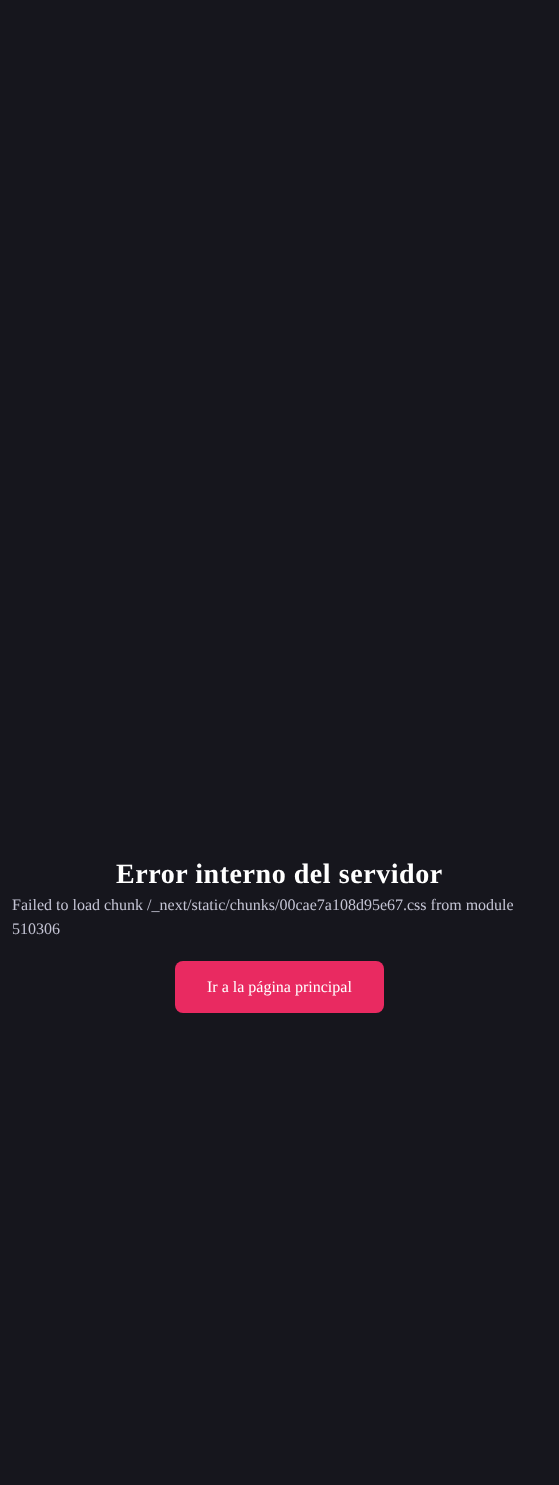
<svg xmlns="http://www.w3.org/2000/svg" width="559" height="1485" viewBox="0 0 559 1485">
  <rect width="100%" height="100%" fill="rgb(22,22,29)"/>
  <text x="116" y="883" font-family="Liberation Serif" font-size="28" font-weight="bold" letter-spacing="0.55" fill="rgb(255,255,255)">Error interno del servidor</text>
  <g font-family="Liberation Serif" font-size="16" fill="rgb(196,196,212)">
    <text>
      <tspan x="12" y="910">Failed to load chunk /_next/static/chunks/00cae7a108d95e67.css from module</tspan>
      <tspan x="12" y="934">510306</tspan>
    </text>
  </g>
  <rect x="175" y="961" width="209" height="52" rx="8" fill="rgb(233,42,97)"/>
  <text x="207" y="992" font-family="Liberation Serif" font-size="16" fill="rgb(255,255,255)">Ir a la página principal</text>
</svg>
